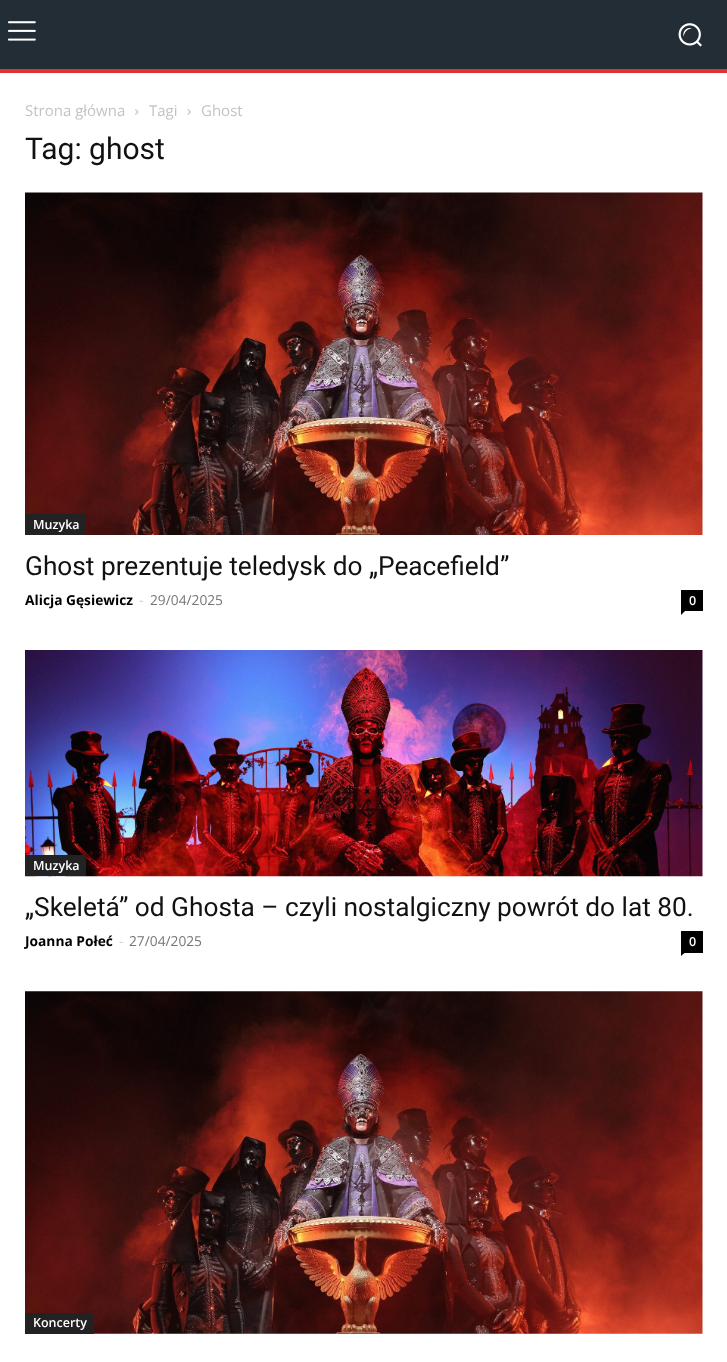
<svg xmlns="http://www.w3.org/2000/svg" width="727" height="1362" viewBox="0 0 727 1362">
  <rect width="100%" height="100%" fill="rgb(255,255,255)"/>
  <rect x="0" y="0" width="727" height="69" fill="rgb(35,45,53)"/>
  <image x="7" y="21" width="29" height="20" href="pic1.png"/>
  <image x="678" y="23" width="24" height="24" href="pic2.png"/>
  <rect x="0" y="69" width="727" height="4" fill="rgb(221,51,51)"/>
  <text x="25" y="116" font-family="Open Sans" font-size="15" fill="rgb(195,195,195)">Strona główna</text>
  <image x="135" y="109" width="4" height="6" href="pic3.png"/>
  <text x="149" y="116" font-family="Open Sans" font-size="15" fill="rgb(195,195,195)">Tagi</text>
  <image x="187" y="109" width="4" height="6" href="pic4.png"/>
  <text x="201" y="116" font-family="Open Sans" font-size="15" fill="rgb(195,195,195)">Ghost</text>
  <text x="25" y="159" font-family="Roboto" font-size="30" fill="rgb(17,17,17)">Tag: ghost</text>
  <image x="25" y="192" width="678" height="343" href="pic5.png"/>
  <rect x="25" y="514" width="61" height="21" fill="rgb(34,34,34)"/>
  <text x="33" y="529" font-family="Open Sans" font-size="12.5" font-weight="600" fill="rgb(255,255,255)">Muzyka</text>
  <text x="25" y="575" font-family="Roboto" font-size="26.25" fill="rgb(17,17,17)">Ghost prezentuje teledysk do „Peacefield”</text>
  <text x="25" y="605" font-family="Open Sans" font-size="13.75" font-weight="bold" fill="rgb(0,0,0)">Alicja Gęsiewicz</text>
  <text x="139" y="605" font-family="Open Sans" font-size="13.75" fill="rgb(204,204,204)">-</text>
  <text x="150" y="605" font-family="Open Sans" font-size="13.75" fill="rgb(118,118,118)">29/04/2025</text>
  <rect x="681" y="590" width="22" height="21" fill="rgb(0,0,0)"/>
  <text x="689" y="605" font-family="Open Sans" font-size="12.5" font-weight="600" fill="rgb(255,255,255)">0</text>
  <path d="M681 611H685L681 615Z" fill="rgb(0,0,0)"/>
  <image x="25" y="650" width="678" height="227" href="pic6.png"/>
  <rect x="25" y="855" width="61" height="21" fill="rgb(34,34,34)"/>
  <text x="33" y="870" font-family="Open Sans" font-size="12.5" font-weight="600" fill="rgb(255,255,255)">Muzyka</text>
  <text x="25" y="916" font-family="Roboto" font-size="26.25" fill="rgb(17,17,17)">„Skeletá” od Ghosta – czyli nostalgiczny powrót do lat 80.</text>
  <text x="25" y="946" font-family="Open Sans" font-size="13.75" font-weight="bold" fill="rgb(0,0,0)">Joanna Połeć</text>
  <text x="119" y="946" font-family="Open Sans" font-size="13.75" fill="rgb(204,204,204)">-</text>
  <text x="129" y="946" font-family="Open Sans" font-size="13.75" fill="rgb(118,118,118)">27/04/2025</text>
  <rect x="681" y="931" width="22" height="22" fill="rgb(0,0,0)"/>
  <text x="689" y="946" font-family="Open Sans" font-size="12.5" font-weight="600" fill="rgb(255,255,255)">0</text>
  <path d="M681 952.5H685L681 956Z" fill="rgb(0,0,0)"/>
  <image x="25" y="991" width="678" height="343" href="pic7.png"/>
  <rect x="25" y="1313" width="69" height="21" fill="rgb(34,34,34)"/>
  <text x="33" y="1327" font-family="Open Sans" font-size="12.5" font-weight="600" fill="rgb(255,255,255)">Koncerty</text>
</svg>
